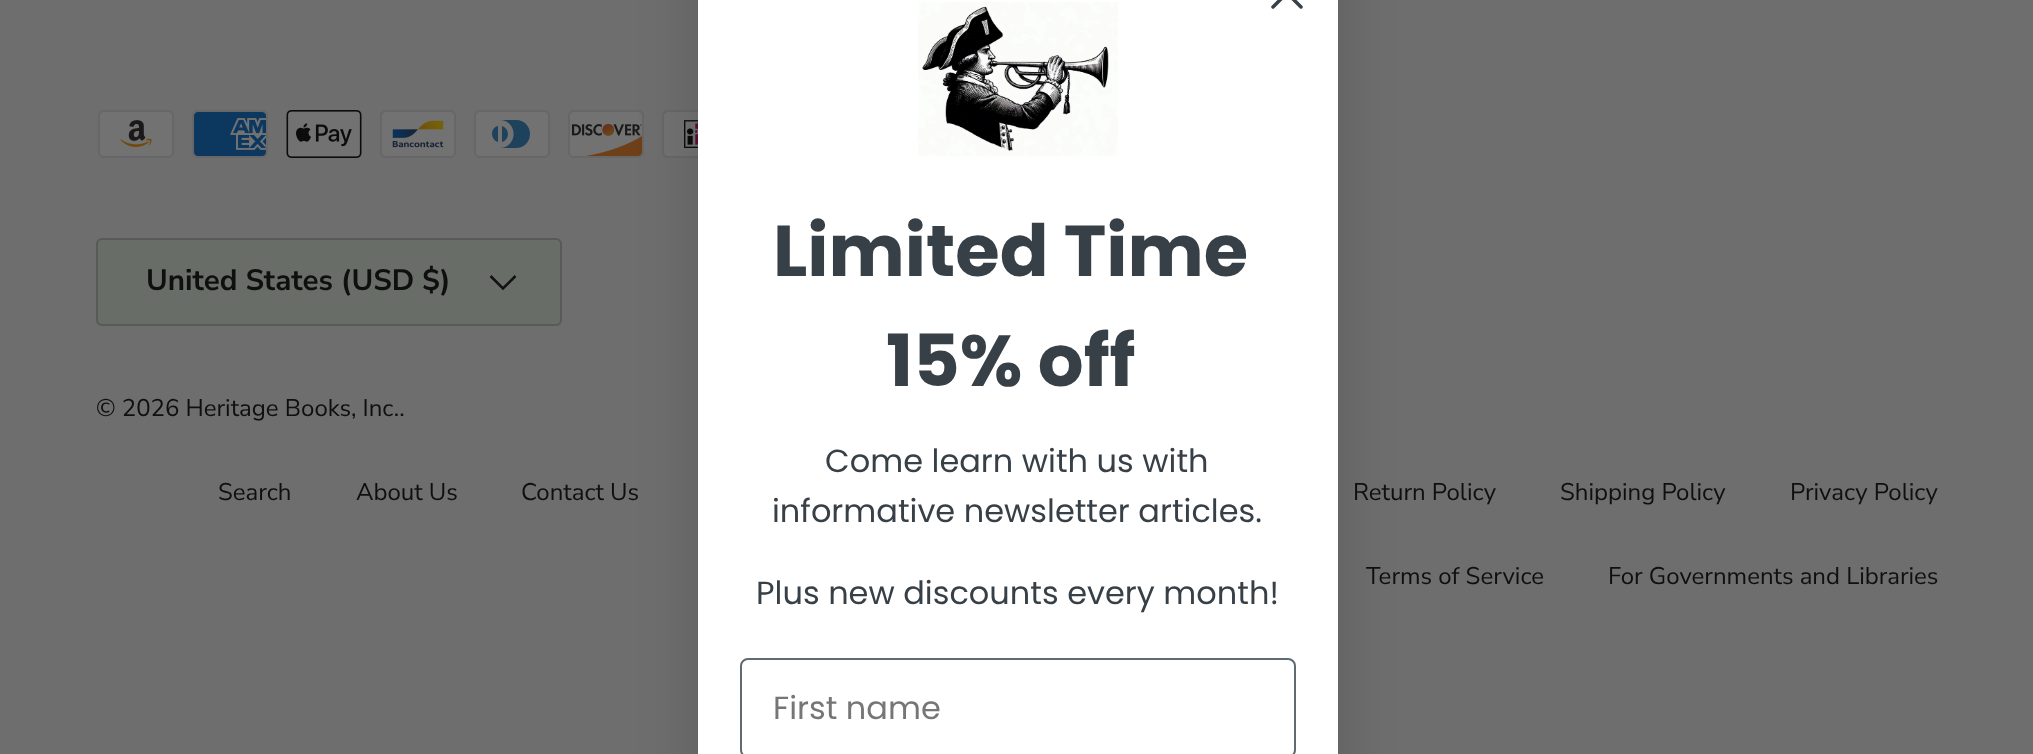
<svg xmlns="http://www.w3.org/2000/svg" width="2033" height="754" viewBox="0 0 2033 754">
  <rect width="100%" height="100%" fill="rgb(110,110,110)"/>
  <image x="568" y="110" width="76" height="48" href="pic7.png"/>
  <image x="662" y="110" width="36" height="48" href="pic8.png"/>
  <rect x="698" y="-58" width="640" height="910" rx="8" fill="rgba(0,0,0,0.15)" filter="blur(30px)"/>
  <rect x="698" y="0" width="640" height="754" fill="rgb(255,255,255)"/>
  <path d="M1273-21L1301 7M1273 7L1301-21Z" fill="none" stroke="rgb(55,63,71)" stroke-width="3.5" stroke-linecap="round" stroke-linejoin="round"/>
  <image x="918" y="2" width="200" height="154" href="pic1.png"/>
  <g font-family="Poppins" font-size="72" font-weight="bold" fill="rgb(55,63,71)">
    <text x="773" y="276">Limited Time</text>
    <text x="886" y="386">15% off</text>
  </g>
  <g font-family="Poppins" font-size="32" fill="rgb(55,63,71)">
    <text x="825" y="472">Come learn with us with</text>
    <text x="772" y="522">informative newsletter articles.</text>
    <text x="756" y="604">Plus new discounts every month!</text>
  </g>
  <rect x="741" y="659" width="554" height="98" rx="7" fill="none" stroke="rgb(96,106,114)" stroke-width="2"/>
  <text x="773" y="719" font-family="Poppins" font-size="32" fill="rgb(118,118,118)">First name</text>
  <image x="98" y="110" width="76" height="48" href="pic2.png"/>
  <image x="192" y="110" width="76" height="48" href="pic3.png"/>
  <image x="286" y="110" width="76" height="48" href="pic4.png"/>
  <image x="380" y="110" width="76" height="48" href="pic5.png"/>
  <image x="474" y="110" width="76" height="48" href="pic6.png"/>
  <rect x="96" y="238" width="466" height="88" rx="6" fill="rgb(105,109,104)"/>
  <rect x="97" y="239" width="464" height="86" rx="5" fill="none" stroke="rgba(15,15,15,0.2)" stroke-width="2"/>
  <text x="146" y="290" font-family="Nunito Sans" font-size="29.5" font-weight="bold" fill="rgb(15,15,15)">United States (USD $)</text>
  <path d="M515.5 276L503 288.5L490.5 276" fill="none" stroke="rgb(18,17,18)" stroke-width="2.5"/>
  <g font-family="Nunito Sans" font-size="24" fill="rgb(15,15,15)">
    <text x="96" y="416">© 2026 Heritage Books, Inc..</text>
    <text x="218" y="500">Search</text>
    <text x="356" y="500">About Us</text>
    <text x="521" y="500">Contact Us</text>
    <text x="1353" y="500">Return Policy</text>
    <text x="1560" y="500">Shipping Policy</text>
    <text x="1790" y="500">Privacy Policy</text>
    <text x="1366" y="584">Terms of Service</text>
    <text x="1608" y="584">For Governments and Libraries</text>
  </g>
</svg>
